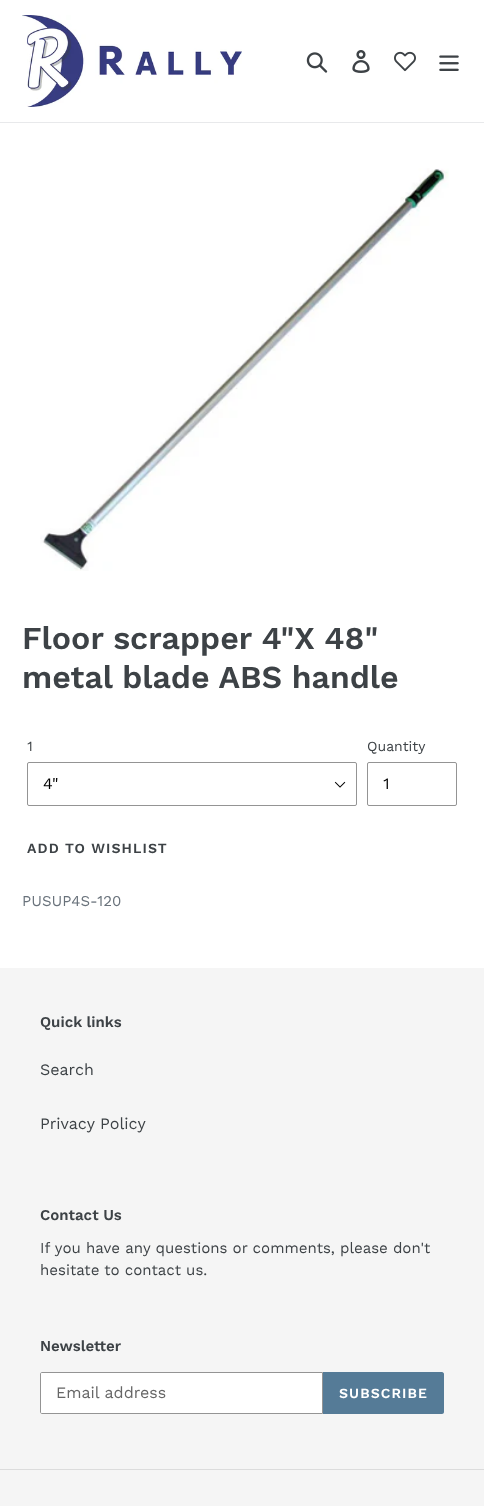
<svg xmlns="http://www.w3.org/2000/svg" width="484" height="1506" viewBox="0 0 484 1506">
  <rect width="100%" height="100%" fill="rgb(255,255,255)"/>
  <rect x="0" y="122" width="484" height="1" fill="rgb(232,233,235)"/>
  <image x="22" y="15" width="220" height="92" href="pic1.png"/>
  <image x="306" y="52" width="22" height="21" href="pic2.png"/>
  <image x="352" y="50" width="18" height="23" href="pic3.png"/>
  <image x="394" y="51" width="22" height="21" href="pic4.png"/>
  <image x="439" y="55" width="20" height="16" href="pic5.png"/>
  <image x="40" y="168" width="409" height="403" href="pic6.png"/>
  <g font-family="Work Sans" font-size="32" font-weight="600" fill="rgb(61,66,70)">
    <text>
      <tspan x="22" y="649">Floor scrapper 4"X 48"</tspan>
      <tspan x="22" y="688">metal blade ABS handle</tspan>
    </text>
  </g>
  <text x="27" y="751" font-family="Work Sans" font-size="14" fill="rgb(61,66,70)">1</text>
  <image x="334" y="781" width="12" height="7" href="pic7.png"/>
  <rect x="27.5" y="762.5" width="329" height="43" rx="1.5" fill="none" stroke="rgb(148,148,148)"/>
  <text x="43" y="789" font-family="Work Sans" font-size="16" fill="rgb(0,0,0)">4"</text>
  <text x="367" y="751" font-family="Work Sans" font-size="14" fill="rgb(61,66,70)">Quantity</text>
  <rect x="367.5" y="762.5" width="89" height="43" rx="1.5" fill="none" stroke="rgb(148,148,148)"/>
  <text x="383" y="789" font-family="Work Sans" font-size="16" fill="rgb(0,0,0)">1</text>
  <text x="27" y="853" font-family="Work Sans" font-size="14" font-weight="600" letter-spacing="1.1" fill="rgb(61,66,70)">ADD TO WISHLIST</text>
  <text x="22" y="906" font-family="Work Sans" font-size="15" fill="rgb(105,114,123)">PUSUP4S-120</text>
  <rect x="0" y="968" width="484" height="538" fill="rgb(245,245,245)"/>
  <text x="40" y="1027" font-family="Work Sans" font-size="15" font-weight="600" fill="rgb(61,66,70)">Quick links</text>
  <g font-family="Work Sans" font-size="16" fill="rgb(61,66,70)">
    <text x="40" y="1075">Search</text>
    <text x="40" y="1129">Privacy Policy</text>
  </g>
  <text x="40" y="1220" font-family="Work Sans" font-size="15" font-weight="600" fill="rgb(61,66,70)">Contact Us</text>
  <g font-family="Work Sans" font-size="15" fill="rgb(61,66,70)">
    <text>
      <tspan x="40" y="1253">If you have any questions or comments, please don't</tspan>
      <tspan x="40" y="1275">hesitate to contact us.</tspan>
    </text>
  </g>
  <text x="40" y="1351" font-family="Work Sans" font-size="15" font-weight="600" fill="rgb(61,66,70)">Newsletter</text>
  <path d="M42 1372.5H322.5V1413.5H42C41 1413.5 40.5 1413 40.5 1412V1374C40.5 1373 41 1372.5 42 1372.5Z" fill="rgb(255,255,255)" stroke="rgb(148,148,148)"/>
  <text x="56" y="1398" font-family="Work Sans" font-size="16" fill="rgb(102,102,102)">Email address</text>
  <path d="M323 1372H442C443 1372 444 1373 444 1374V1412C444 1413 443 1414 442 1414H323Z" fill="rgb(85,123,151)"/>
  <text x="339" y="1398" font-family="Work Sans" font-size="14" font-weight="600" letter-spacing="1.1" fill="rgb(255,255,255)">SUBSCRIBE</text>
  <rect x="0" y="1469" width="484" height="1" fill="rgb(220,220,220)"/>
</svg>
